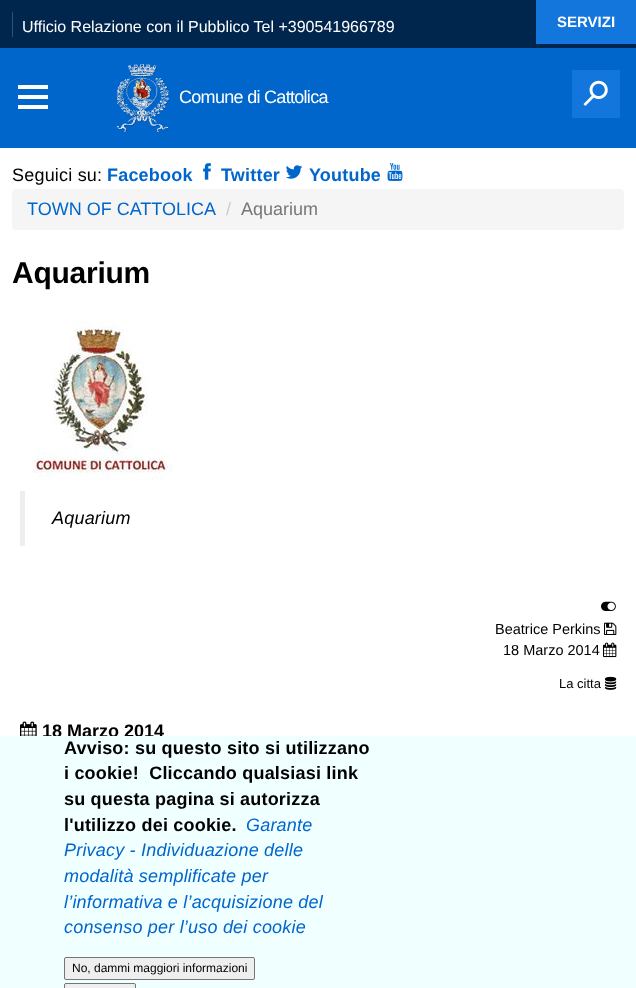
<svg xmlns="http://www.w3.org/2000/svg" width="636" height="988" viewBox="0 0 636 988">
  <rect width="100%" height="100%" fill="rgb(255,255,255)"/>
  <rect x="0" y="48" width="636" height="100" fill="rgb(0,102,204)"/>
  <rect x="0" y="0" width="636" height="48" fill="rgb(0,38,77)"/>
  <rect x="12" y="12" width="1" height="25" fill="rgb(51,81,113)"/>
  <text x="22" y="32" font-family="Liberation Sans" font-size="16" fill="rgb(255,255,255)">Ufficio Relazione con il Pubblico Tel +390541966789</text>
  <rect x="536" y="0" width="100" height="44" fill="rgb(18,118,220)"/>
  <text x="557" y="27" font-family="Liberation Sans" font-size="15" font-weight="bold" fill="rgb(255,255,255)">SERVIZI</text>
  <rect x="18" y="85" width="30" height="4" fill="rgb(255,255,255)"/>
  <rect x="18" y="95" width="30" height="4" fill="rgb(255,255,255)"/>
  <rect x="18" y="105" width="30" height="4" fill="rgb(255,255,255)"/>
  <image x="116" y="64" width="53" height="68" href="pic1.png"/>
  <text x="179" y="103" font-family="Liberation Sans" font-size="18" letter-spacing="-0.7" fill="rgb(255,255,255)">Comune di Cattolica</text>
  <rect x="572" y="70" width="48" height="48" fill="rgb(18,118,220)"/>
  <image x="583" y="80" width="25" height="26" href="pic2.png"/>
  <text x="12" y="181" font-family="Liberation Sans" font-size="18" letter-spacing="0.2" fill="rgb(0,0,0)">Seguici su:</text>
  <text x="107" y="181" font-family="Liberation Sans" font-size="18" font-weight="bold" letter-spacing="0.2" fill="rgb(0,102,204)">Facebook</text>
  <image x="203" y="163" width="8" height="17" href="pic3.png"/>
  <text x="221" y="181" font-family="Liberation Sans" font-size="18" font-weight="bold" letter-spacing="0.2" fill="rgb(0,102,204)">Twitter</text>
  <image x="286" y="165" width="16" height="14" href="pic4.png"/>
  <text x="309" y="181" font-family="Liberation Sans" font-size="18" font-weight="bold" letter-spacing="0.2" fill="rgb(0,102,204)">Youtube</text>
  <image x="387" y="163" width="16" height="18" href="pic5.png"/>
  <rect x="12" y="189" width="612" height="41" rx="4" fill="rgb(245,245,245)"/>
  <text x="27" y="215" font-family="Liberation Sans" font-size="18" fill="rgb(0,102,204)">TOWN OF CATTOLICA</text>
  <text x="226" y="215" font-family="Liberation Sans" font-size="18" fill="rgb(204,204,204)">/</text>
  <text x="241" y="215" font-family="Liberation Sans" font-size="18" fill="rgb(119,119,119)">Aquarium</text>
  <text x="12" y="283" font-family="Liberation Sans" font-size="30" font-weight="bold" letter-spacing="-0.25" fill="rgb(0,0,0)">Aquarium</text>
  <image x="32" y="321" width="141" height="160" href="pic6.png"/>
  <rect x="20" y="491" width="5" height="55" fill="rgb(238,238,238)"/>
  <text x="52" y="524" font-family="Liberation Sans" font-size="18" font-style="italic" letter-spacing="0.2" fill="rgb(0,0,0)">Aquarium</text>
  <image x="601" y="601" width="15" height="10" href="pic7.png"/>
  <text x="495" y="634" font-family="Liberation Sans" font-size="14.5" fill="rgb(0,0,0)">Beatrice Perkins</text>
  <image x="604" y="622" width="13" height="13" href="pic8.png"/>
  <text x="503" y="655" font-family="Liberation Sans" font-size="14.5" fill="rgb(0,0,0)">18 Marzo 2014</text>
  <image x="603" y="642" width="14" height="16" href="pic9.png"/>
  <text x="559" y="688" font-family="Liberation Sans" font-size="13" fill="rgb(0,0,0)">La citta</text>
  <image x="605" y="676" width="12" height="14" href="pic10.png"/>
  <image x="20" y="721" width="17" height="15" href="pic11.png"/>
  <text x="42" y="737" font-family="Liberation Sans" font-size="18" font-weight="bold" fill="rgb(0,0,0)">18 Marzo 2014</text>
  <rect x="0" y="736" width="636" height="252" fill="rgb(240,255,255)"/>
  <g font-family="Liberation Sans" font-size="18" font-weight="bold" letter-spacing="0.2" fill="rgb(0,0,0)">
    <text xml:space="preserve"><tspan x="64" y="754">Avviso: su questo sito si utilizzano</tspan><tspan x="64" y="779">i cookie!  Cliccando qualsiasi link</tspan><tspan x="64" y="805">su questa pagina si autorizza</tspan><tspan x="64" y="831">l'utilizzo dei cookie.</tspan></text>
  </g>
  <g font-family="Liberation Sans" font-size="18" font-style="italic" letter-spacing="0.2" fill="rgb(0,102,204)">
    <text x="246" y="831">Garante</text>
    <text>
      <tspan x="64" y="856">Privacy - Individuazione delle</tspan>
      <tspan x="64" y="882">modalità semplificate per</tspan>
      <tspan x="64" y="908">l’informativa e l’acquisizione del</tspan>
      <tspan x="64" y="933">consenso per l’uso dei cookie</tspan>
    </text>
  </g>
  <rect x="64.5" y="957.5" width="190" height="22" rx="1.5" fill="rgb(239,239,239)" stroke="rgb(118,118,118)"/>
  <text x="72" y="972" font-family="Liberation Sans" font-size="12" fill="rgb(0,0,0)">No, dammi maggiori informazioni</text>
  <rect x="64.5" y="983.5" width="71" height="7" rx="1.5" fill="rgb(239,239,239)" stroke="rgb(118,118,118)"/>
</svg>
